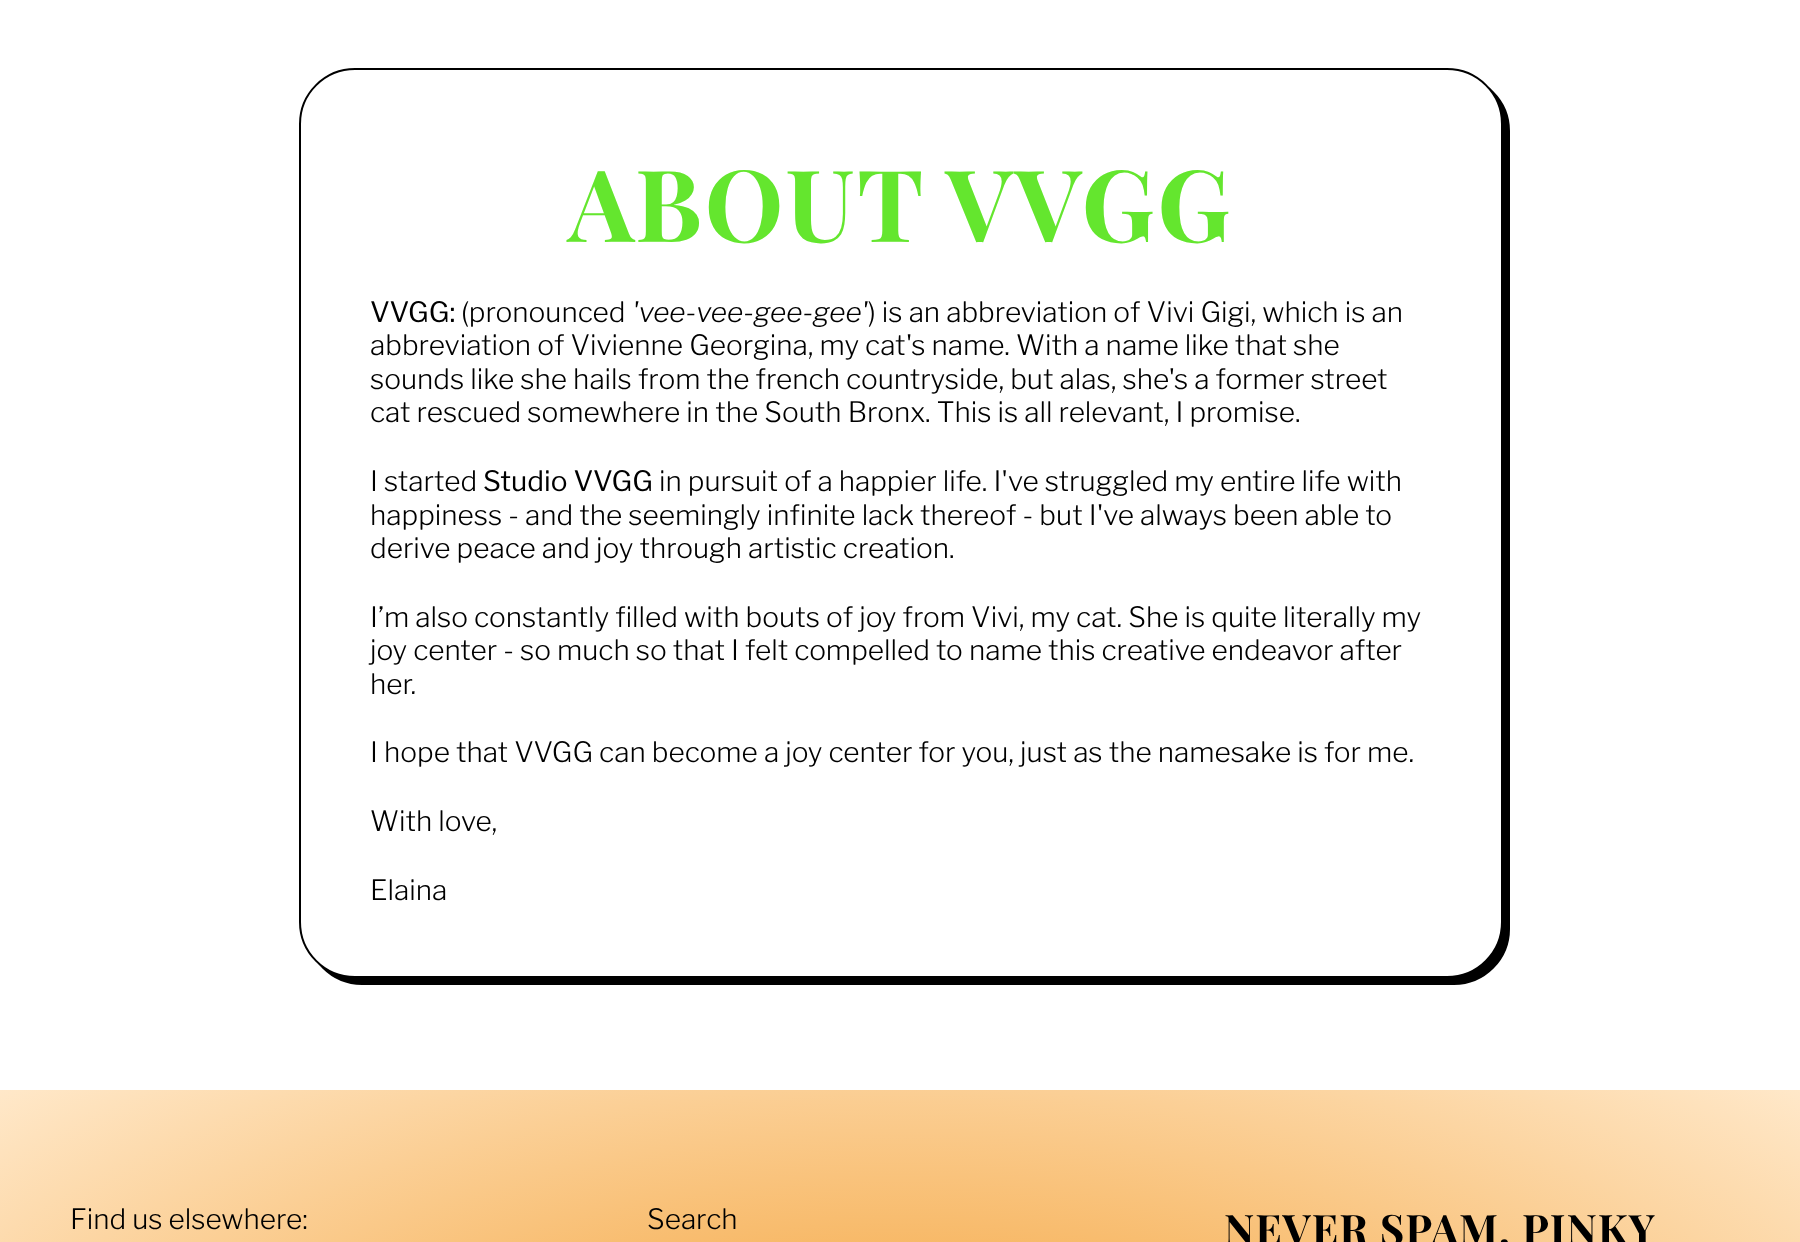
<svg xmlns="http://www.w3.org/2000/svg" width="1800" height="1242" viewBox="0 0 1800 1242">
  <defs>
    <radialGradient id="g1" gradientUnits="userSpaceOnUse" cx="0" cy="0" r="1" gradientTransform="matrix(1273 0 0 626 900 1533)"><stop offset="0" stop-color="rgb(241,145,21)"/><stop offset="1" stop-color="rgb(255,232,201)"/></radialGradient>
  </defs>
  <rect width="100%" height="100%" fill="rgb(255,255,255)"/>
  <rect x="307" y="76" width="1202" height="908" rx="55" fill="rgb(0,0,0)" stroke="rgb(0,0,0)" stroke-width="2"/>
  <rect x="300" y="69" width="1202" height="908" rx="55" fill="rgb(255,255,255)" stroke="rgb(0,0,0)" stroke-width="2"/>
  <text x="568" y="242" font-family="Playfair Display" font-size="99.75" font-weight="bold" letter-spacing="2.5" fill="rgb(100,230,46)">ABOUT VVGG</text>
  <text x="370" y="322" font-family="Libre Franklin" font-size="28" fill="rgb(0,0,0)">VVGG:</text>
  <text x="461" y="322" font-family="Libre Franklin" font-size="28" font-weight="300" fill="rgb(0,0,0)">(pronounced</text>
  <text x="632" y="322" font-family="Libre Franklin" font-size="28" font-weight="300" font-style="italic" fill="rgb(0,0,0)">'vee-vee-gee-gee'</text>
  <g font-family="Libre Franklin" font-size="28" font-weight="300" fill="rgb(0,0,0)">
    <text x="868" y="322">) is an abbreviation of Vivi Gigi, which is an</text>
    <text>
      <tspan x="370" y="355">abbreviation of Vivienne Georgina, my cat's name. With a name like that she</tspan>
      <tspan x="370" y="389">sounds like she hails from the french countryside, but alas, she's a former street</tspan>
      <tspan x="370" y="422">cat rescued somewhere in the South Bronx. This is all relevant, I promise.</tspan>
    </text>
    <text x="370" y="491">I started</text>
  </g>
  <text x="483" y="491" font-family="Libre Franklin" font-size="28" fill="rgb(0,0,0)">Studio VVGG</text>
  <g font-family="Libre Franklin" font-size="28" font-weight="300" fill="rgb(0,0,0)">
    <text x="659" y="491">in pursuit of a happier life. I've struggled my entire life with</text>
    <text>
      <tspan x="370" y="525">happiness - and the seemingly infinite lack thereof - but I've always been able to</tspan>
      <tspan x="370" y="558">derive peace and joy through artistic creation.</tspan>
    </text>
    <text>
      <tspan x="370" y="627">I’m also constantly filled with bouts of joy from Vivi, my cat. She is quite literally my</tspan>
      <tspan x="370" y="660">joy center - so much so that I felt compelled to name this creative endeavor after</tspan>
      <tspan x="370" y="694">her.</tspan>
    </text>
    <text x="370" y="762">I hope that VVGG can become a joy center for you, just as the namesake is for me.</text>
    <text x="370" y="831">With love,</text>
    <text x="370" y="900">Elaina</text>
  </g>
  <rect x="0" y="1090" width="1800" height="152" fill="url(#g1)"/>
  <g font-family="Libre Franklin" font-size="28" font-weight="300" fill="rgb(0,0,0)">
    <text x="70" y="1229">Find us elsewhere:</text>
    <text x="647" y="1229">Search</text>
  </g>
  <text x="1224" y="1245" font-family="Playfair Display" font-size="42" font-weight="bold" letter-spacing="1" fill="rgb(0,0,0)">NEVER SPAM, PINKY</text>
</svg>
